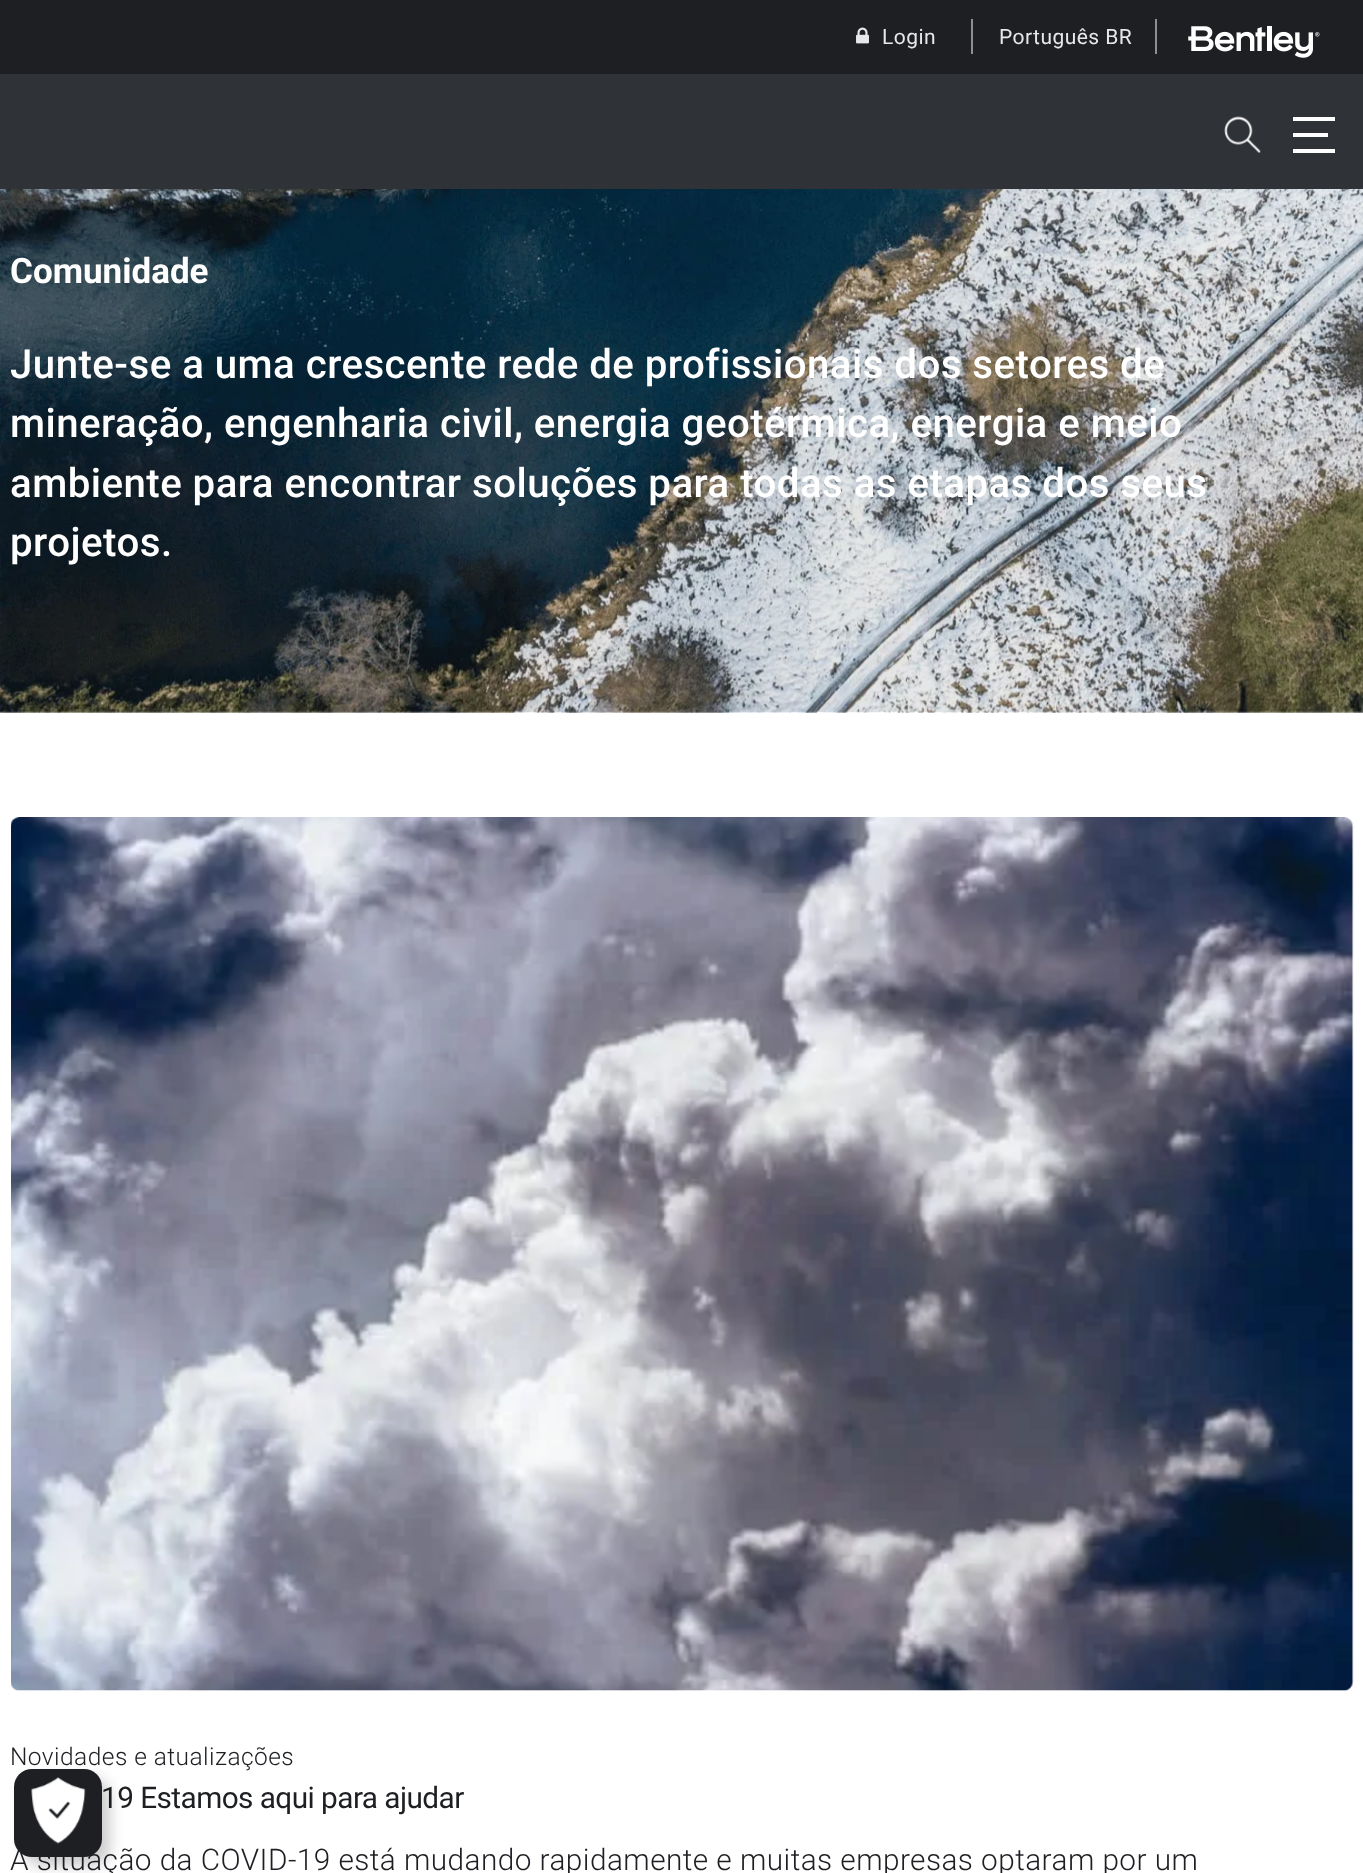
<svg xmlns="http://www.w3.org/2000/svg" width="1363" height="1873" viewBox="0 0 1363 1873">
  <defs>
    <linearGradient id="g1" gradientUnits="userSpaceOnUse" x1="0" y1="414" x2="1363" y2="414"><stop offset="0" stop-color="rgb(10,10,10)" stop-opacity="0.14"/><stop offset="1" stop-color="rgb(10,10,10)" stop-opacity="0.07"/></linearGradient>
  </defs>
  <rect width="100%" height="100%" fill="rgb(255,255,255)"/>
  <rect x="0" y="0" width="1363" height="74" fill="rgb(29,31,35)"/>
  <image x="856" y="27" width="13" height="17" href="pic1.png"/>
  <text x="882" y="44" font-family="Roboto" font-size="21" letter-spacing="0.45" fill="rgb(230,231,233)">Login</text>
  <rect x="971" y="19" width="2" height="35" fill="rgb(142,143,145)"/>
  <text x="999" y="44" font-family="Roboto" font-size="21" letter-spacing="0.45" fill="rgb(230,231,233)">Português BR</text>
  <rect x="1155" y="19" width="2" height="35" fill="rgb(142,143,145)"/>
  <image x="1188" y="26" width="132" height="32" href="pic2.png"/>
  <rect x="0" y="74" width="1363" height="115" fill="rgb(47,50,55)"/>
  <image x="1224" y="116" width="37" height="37" href="pic3.png"/>
  <rect x="1293" y="117" width="42" height="4" fill="rgb(255,255,255)"/>
  <rect x="1293" y="133" width="35" height="4" fill="rgb(255,255,255)"/>
  <rect x="1293" y="149" width="42" height="4" fill="rgb(255,255,255)"/>
  <image x="0" y="189" width="1363" height="524" href="pic4.png"/>
  <rect x="0" y="189" width="1363" height="523" fill="url(#g1)"/>
  <text x="10" y="283" font-family="Roboto" font-size="35" font-weight="bold" fill="rgb(255,255,255)">Comunidade</text>
  <g font-family="Roboto" font-size="40.25" font-weight="500" letter-spacing="0.45" fill="rgb(255,255,255)">
    <text>
      <tspan x="10" y="378">Junte-se a uma crescente rede de profissionais dos setores de</tspan>
      <tspan x="10" y="437">mineração, engenharia civil, energia geotérmica, energia e meio</tspan>
      <tspan x="10" y="497">ambiente para encontrar soluções para todas as etapas dos seus</tspan>
      <tspan x="10" y="556">projetos.</tspan>
    </text>
  </g>
  <image x="11" y="817" width="1343" height="874" href="pic5.png"/>
  <text x="10" y="1765" font-family="Roboto" font-size="24.5" font-weight="300" letter-spacing="0.45" fill="rgb(29,31,35)">Novidades e atualizações</text>
  <text x="101" y="1808" font-family="Roboto" font-size="29.75" letter-spacing="-0.55" fill="rgb(29,31,35)">19 Estamos aqui para ajudar</text>
  <text x="10" y="1870" font-family="Roboto" font-size="29.75" font-weight="300" letter-spacing="0.45" fill="rgb(29,31,35)">A situação da COVID-19 está mudando rapidamente e muitas empresas optaram por um</text>
  <rect x="23" y="1778" width="87" height="88" rx="18" fill="rgba(0,0,0,0.2)" filter="blur(7px)"/>
  <rect x="14" y="1769" width="88" height="88" rx="18" fill="rgb(29,31,35)"/>
  <image x="31" y="1777" width="55" height="67" href="pic6.png"/>
</svg>
